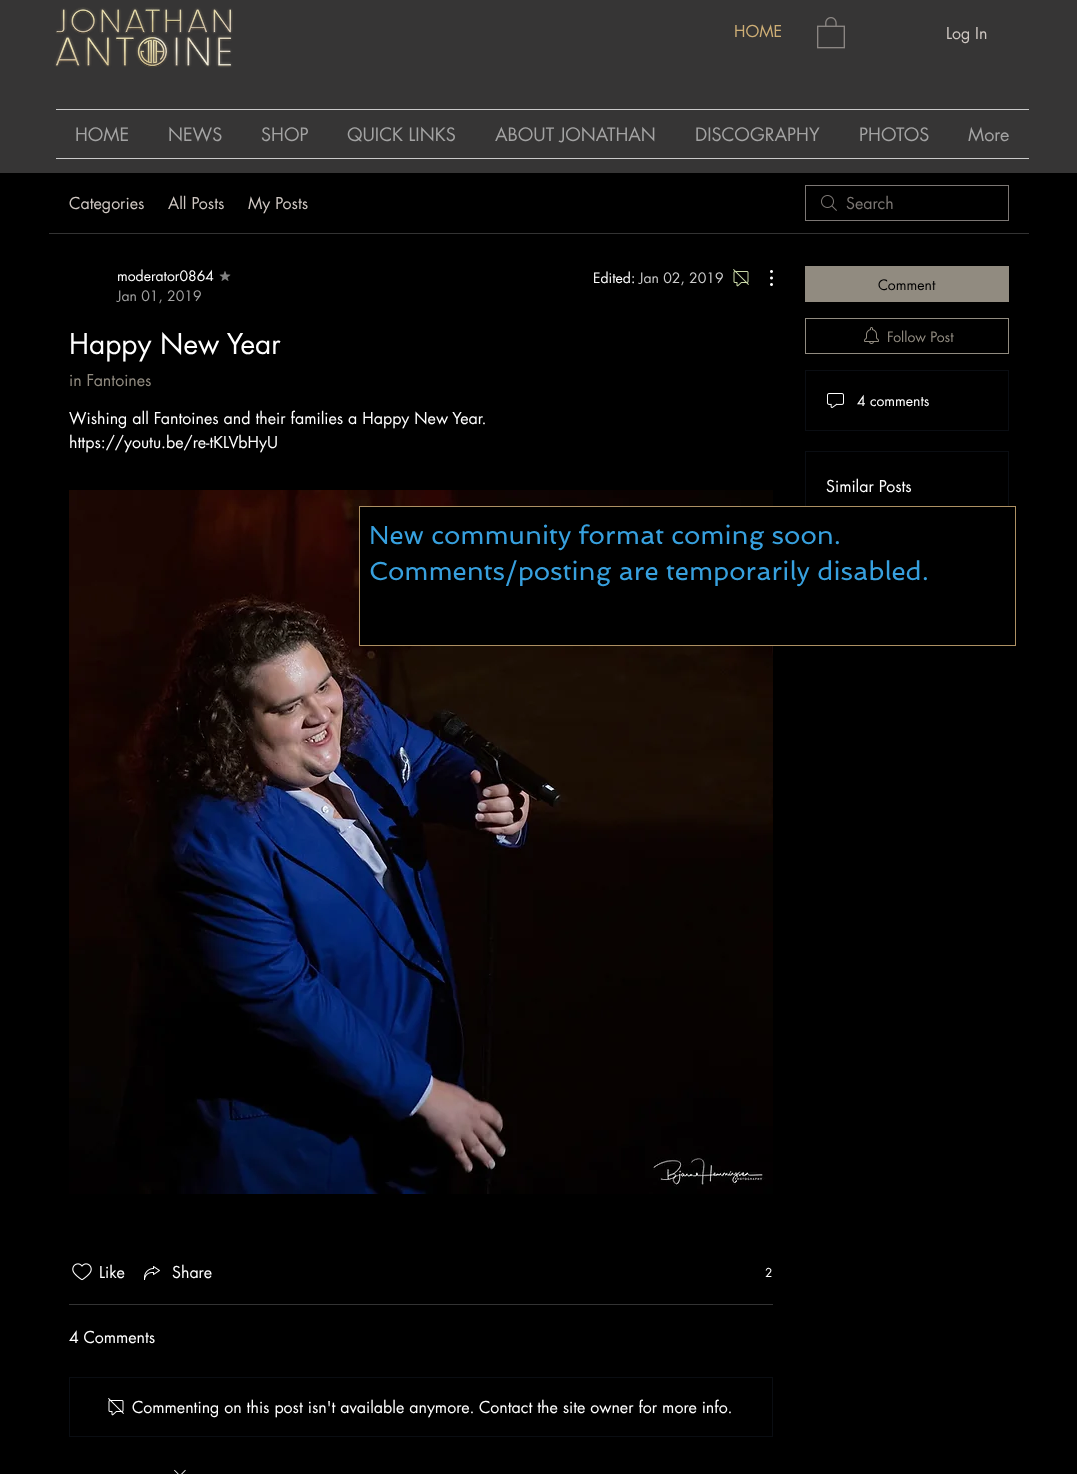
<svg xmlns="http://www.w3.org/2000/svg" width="1077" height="1474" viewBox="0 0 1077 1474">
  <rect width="100%" height="100%" fill="rgb(0,0,0)"/>
  <rect x="0" y="0" width="1077" height="173" fill="rgb(54,53,53)"/>
  <image x="817" y="17" width="28" height="32" href="pic1.png"/>
  <image x="54" y="7" width="179" height="61" href="pic2.png"/>
  <text x="734" y="37" font-family="futura" font-size="16" fill="rgb(207,175,118)">HOME</text>
  <text x="946" y="39" font-family="futura" font-size="16" fill="rgb(207,199,194)">Log In</text>
  <rect x="56" y="109" width="973" height="1" fill="rgb(202,202,202)"/>
  <rect x="56" y="158" width="973" height="1" fill="rgb(202,202,202)"/>
  <g font-family="futura" font-size="18" fill="rgb(163,163,163)">
    <text x="75" y="141">HOME</text>
    <text x="168" y="141">NEWS</text>
    <text x="261" y="141">SHOP</text>
    <text x="347" y="141">QUICK LINKS</text>
    <text x="495" y="141">ABOUT JONATHAN</text>
    <text x="695" y="141">DISCOGRAPHY</text>
    <text x="859" y="141">PHOTOS</text>
    <text x="968" y="141">More</text>
  </g>
  <rect x="49" y="233" width="980" height="1" fill="rgb(51,51,51)"/>
  <g font-family="futura" font-size="16" fill="rgb(207,199,194)">
    <text x="69" y="209">Categories</text>
    <text x="168" y="209">All Posts</text>
    <text x="248" y="209">My Posts</text>
  </g>
  <image x="821" y="195" width="16" height="16" href="pic3.png"/>
  <rect x="805.5" y="185.5" width="203" height="35" fill="none" stroke="rgb(124,119,116)"/>
  <text x="846" y="209" font-family="futura" font-size="16" fill="rgb(124,119,116)">Search</text>
  <text x="117" y="281" font-family="futura" font-size="14" fill="rgb(255,255,255)">moderator0864</text>
  <image x="219" y="271" width="12" height="10" href="pic4.png"/>
  <text x="117" y="301" font-family="futura" font-size="14" fill="rgb(163,163,163)">Jan 01, 2019</text>
  <text x="593" y="283" font-family="futura" font-size="14" fill="rgb(255,255,255)">Edited:</text>
  <text x="639" y="283" font-family="futura" font-size="14" fill="rgb(204,204,204)">Jan 02, 2019</text>
  <image x="733" y="269" width="16" height="18" href="pic5.png"/>
  <image x="770" y="270" width="3" height="16" href="pic6.png"/>
  <text x="69" y="354" font-family="futura" font-size="28" fill="rgb(255,255,255)">Happy New Year</text>
  <text x="69" y="386" font-family="futura" font-size="16" fill="rgb(145,139,128)">in Fantoines</text>
  <g font-family="futura" font-size="16" fill="rgb(255,255,255)">
    <text>
      <tspan x="69" y="424">Wishing all Fantoines and their families a Happy New Year.</tspan>
      <tspan x="69" y="448">https://youtu.be/re-tKLVbHyU</tspan>
    </text>
  </g>
  <image x="69" y="490" width="704" height="704" href="pic7.png"/>
  <image x="72" y="1263" width="20" height="18" href="pic8.png"/>
  <text x="99" y="1278" font-family="futura" font-size="16" fill="rgb(255,255,255)">Like</text>
  <image x="144" y="1266" width="16" height="14" href="pic9.png"/>
  <text x="172" y="1278" font-family="futura" font-size="16" fill="rgb(255,255,255)">Share</text>
  <text x="765" y="1277" font-family="futura" font-size="12" fill="rgb(255,255,255)">2</text>
  <rect x="69" y="1304" width="704" height="1" fill="rgb(51,51,51)"/>
  <text x="69" y="1343" font-family="futura" font-size="16" fill="rgb(255,255,255)">4 Comments</text>
  <rect x="69.5" y="1377.5" width="703" height="59" fill="none" stroke="rgb(10,13,18)"/>
  <image x="108" y="1398" width="16" height="18" href="pic10.png"/>
  <text x="132" y="1413" font-family="futura" font-size="16" fill="rgb(255,255,255)">Commenting on this post isn't available anymore. Contact the site owner for more info.</text>
  <image x="174" y="1469" width="12" height="5" href="pic11.png"/>
  <rect x="805" y="266" width="204" height="36" fill="rgb(145,139,128)"/>
  <text x="878" y="290" font-family="futura" font-size="14" fill="rgb(0,0,0)">Comment</text>
  <rect x="805.5" y="318.5" width="203" height="35" fill="none" stroke="rgb(145,139,128)"/>
  <image x="864" y="327" width="15" height="17" href="pic12.png"/>
  <text x="887" y="342" font-family="futura" font-size="14" fill="rgb(145,139,128)">Follow Post</text>
  <rect x="805.5" y="370.5" width="203" height="60" fill="none" stroke="rgb(10,13,18)"/>
  <image x="827" y="393" width="17" height="15" href="pic13.png"/>
  <text x="857" y="406" font-family="futura" font-size="14" fill="rgb(255,255,255)">4 comments</text>
  <rect x="805.5" y="451.5" width="203" height="188" fill="none" stroke="rgb(10,13,18)"/>
  <text x="826" y="492" font-family="futura" font-size="16" fill="rgb(255,255,255)">Similar Posts</text>
  <rect x="360" y="507" width="649" height="138" fill="rgb(0,0,0)"/>
  <rect x="359.5" y="506.5" width="656" height="139" fill="none" stroke="rgb(173,144,99)"/>
  <g font-family="Spinnaker" font-size="26" fill="rgb(55,160,222)">
    <text>
      <tspan x="369" y="544">New community format coming soon.</tspan>
      <tspan x="369" y="580">Comments/posting are temporarily disabled.</tspan>
    </text>
  </g>
</svg>
